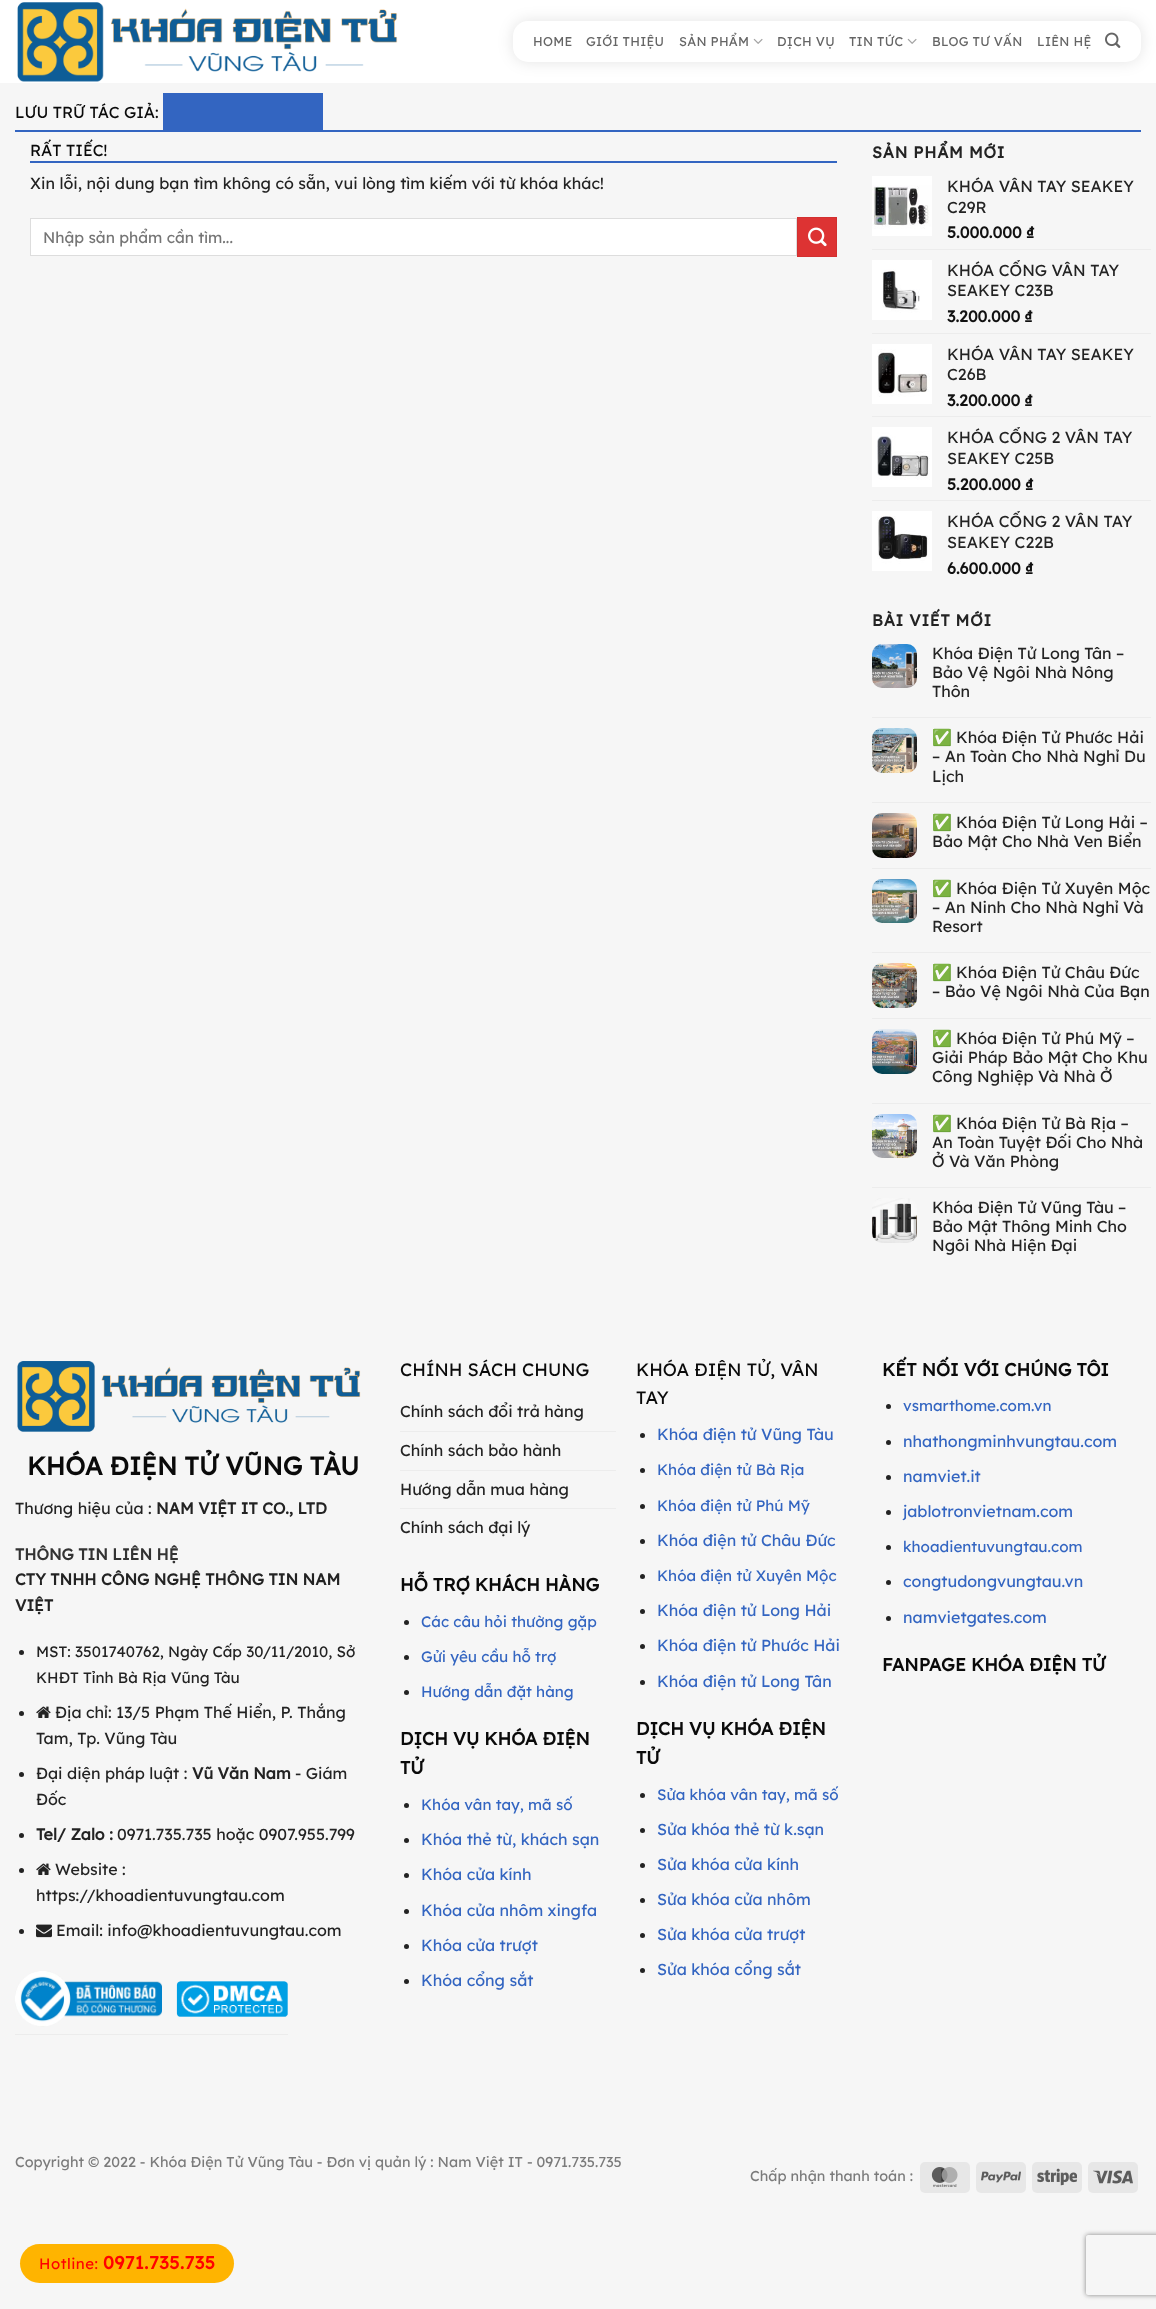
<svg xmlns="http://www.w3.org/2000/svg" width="1156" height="2309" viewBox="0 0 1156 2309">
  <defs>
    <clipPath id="clip1"><rect x="947" y="260" width="204" height="41"/></clipPath>
    <clipPath id="clip2"><rect x="947" y="427" width="204" height="42"/></clipPath>
    <clipPath id="clip3"><rect x="947" y="511" width="204" height="42"/></clipPath>
    <clipPath id="clip4"><path d="M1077 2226H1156V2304H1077ZM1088 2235H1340C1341 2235 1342 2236 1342 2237V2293C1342 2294 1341 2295 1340 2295H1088C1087 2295 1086 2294 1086 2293V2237C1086 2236 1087 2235 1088 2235Z" clip-rule="evenodd"/></clipPath>
  </defs>
  <rect width="100%" height="100%" fill="rgb(246,246,246)"/>
  <rect x="0" y="0" width="1156" height="83" fill="rgb(255,255,255)"/>
  <image x="17" y="2" width="381" height="80" href="pic1.png"/>
  <rect x="513" y="21" width="628" height="41" rx="15" fill="rgba(0,0,0,0.11)" filter="blur(7.5px)"/>
  <rect x="513" y="21" width="628" height="41" rx="15" fill="rgb(255,255,255)"/>
  <g font-family="Lexend Deca" font-size="12.75" letter-spacing="0.25" fill="rgb(101,101,101)">
    <text x="533" y="46">HOME</text>
    <text x="586" y="46">GIỚI THIỆU</text>
    <text x="679" y="46">SẢN PHẨM</text>
  </g>
  <image x="753" y="38" width="10" height="6" href="pic2.png"/>
  <g font-family="Lexend Deca" font-size="12.75" letter-spacing="0.25" fill="rgb(101,101,101)">
    <text x="777" y="46">DỊCH VỤ</text>
    <text x="849" y="46">TIN TỨC</text>
  </g>
  <image x="907" y="38" width="10" height="6" href="pic2.png"/>
  <g font-family="Lexend Deca" font-size="12.75" letter-spacing="0.25" fill="rgb(101,101,101)">
    <text x="932" y="46">BLOG TƯ VẤN</text>
    <text x="1037" y="46">LIÊN HỆ</text>
  </g>
  <image x="1105" y="32" width="16" height="16" href="pic3.png"/>
  <rect x="15" y="130" width="1126" height="2" fill="rgb(51,101,193)"/>
  <text x="15" y="118" font-family="Lexend Deca" font-size="16" fill="rgb(10,10,10)">LƯU TRỮ TÁC GIẢ:</text>
  <rect x="163" y="93" width="160" height="37" fill="rgb(51,101,193)"/>
  <rect x="30" y="161" width="807" height="2" fill="rgb(51,101,193)"/>
  <text x="30" y="156" font-family="Lexend Deca" font-size="16" fill="rgb(10,10,10)">RẤT TIẾC!</text>
  <text x="30" y="189" font-family="Lexend Deca" font-size="16" fill="rgb(35,35,35)">Xin lỗi, nội dung bạn tìm không có sẵn, vui lòng tìm kiếm với từ khóa khác!</text>
  <rect x="30.5" y="218.5" width="766" height="37" fill="rgb(255,255,255)" stroke="rgb(221,221,221)"/>
  <text x="43" y="243" font-family="Lexend Deca" font-size="15.5" fill="rgb(117,117,117)">Nhập sản phẩm cần tìm...</text>
  <rect x="797.5" y="217.5" width="39" height="39" fill="rgb(221,51,51)" stroke="rgb(210,48,48)"/>
  <image x="808" y="227" width="19" height="20" href="pic4.png"/>
  <text x="872" y="158" font-family="Lexend Deca" font-size="16" font-weight="bold" letter-spacing="0.75" fill="rgb(35,35,35)">SẢN PHẨM MỚI</text>
  <image x="872" y="176" width="60" height="60" href="pic5.png"/>
  <g font-family="Lexend Deca" font-size="16" fill="rgb(35,35,35)">
    <text>
      <tspan x="947" y="192">KHÓA VÂN TAY SEAKEY</tspan>
      <tspan x="947" y="213">C29R</tspan>
    </text>
  </g>
  <text x="947" y="238" font-family="Lexend Deca" font-size="16" font-weight="bold" fill="rgb(17,17,17)">5.000.000 ₫</text>
  <rect x="872" y="249" width="279" height="1" fill="rgb(236,236,236)"/>
  <image x="872" y="260" width="60" height="60" href="pic6.png"/>
  <g clip-path="url(#clip1)">
    <text x="947" y="276" font-family="Lexend Deca" font-size="16" fill="rgb(35,35,35)">KHÓA CỔNG VÂN TAY</text>
  </g>
  <text x="947" y="296" font-family="Lexend Deca" font-size="16" fill="rgb(35,35,35)">SEAKEY C23B</text>
  <text x="947" y="322" font-family="Lexend Deca" font-size="16" font-weight="bold" fill="rgb(17,17,17)">3.200.000 ₫</text>
  <rect x="872" y="333" width="279" height="1" fill="rgb(236,236,236)"/>
  <image x="872" y="344" width="60" height="60" href="pic7.png"/>
  <g font-family="Lexend Deca" font-size="16" fill="rgb(35,35,35)">
    <text>
      <tspan x="947" y="360">KHÓA VÂN TAY SEAKEY</tspan>
      <tspan x="947" y="380">C26B</tspan>
    </text>
  </g>
  <text x="947" y="406" font-family="Lexend Deca" font-size="16" font-weight="bold" fill="rgb(17,17,17)">3.200.000 ₫</text>
  <rect x="872" y="416" width="279" height="1" fill="rgb(236,236,236)"/>
  <image x="872" y="427" width="60" height="60" href="pic8.png"/>
  <g clip-path="url(#clip2)">
    <text x="947" y="443" font-family="Lexend Deca" font-size="16" fill="rgb(35,35,35)">KHÓA CỔNG 2 VÂN TAY</text>
  </g>
  <text x="947" y="464" font-family="Lexend Deca" font-size="16" fill="rgb(35,35,35)">SEAKEY C25B</text>
  <text x="947" y="490" font-family="Lexend Deca" font-size="16" font-weight="bold" fill="rgb(17,17,17)">5.200.000 ₫</text>
  <rect x="872" y="500" width="279" height="1" fill="rgb(236,236,236)"/>
  <image x="872" y="511" width="60" height="60" href="pic9.png"/>
  <g clip-path="url(#clip3)">
    <text x="947" y="527" font-family="Lexend Deca" font-size="16" fill="rgb(35,35,35)">KHÓA CỔNG 2 VÂN TAY</text>
  </g>
  <text x="947" y="548" font-family="Lexend Deca" font-size="16" fill="rgb(35,35,35)">SEAKEY C22B</text>
  <text x="947" y="574" font-family="Lexend Deca" font-size="16" font-weight="bold" fill="rgb(17,17,17)">6.600.000 ₫</text>
  <text x="872" y="626" font-family="Lexend Deca" font-size="16" font-weight="bold" letter-spacing="0.75" fill="rgb(35,35,35)">BÀI VIẾT MỚI</text>
  <image x="872" y="644" width="45" height="44" href="pic10.png"/>
  <g font-family="Lexend Deca" font-size="16" fill="rgb(35,35,35)">
    <text>
      <tspan x="932" y="659">Khóa Điện Tử Long Tân –</tspan>
      <tspan x="932" y="678">Bảo Vệ Ngôi Nhà Nông</tspan>
      <tspan x="932" y="697">Thôn</tspan>
    </text>
  </g>
  <rect x="872" y="717" width="279" height="1" fill="rgb(236,236,236)"/>
  <image x="872" y="728" width="45" height="45" href="pic11.png"/>
  <text x="932" y="743" font-family="Noto Color Emoji" font-size="16" fill="rgb(35,35,35)">✅</text>
  <g font-family="Lexend Deca" font-size="16" fill="rgb(35,35,35)">
    <text x="956" y="743">Khóa Điện Tử Phước Hải</text>
    <text>
      <tspan x="932" y="762">– An Toàn Cho Nhà Nghỉ Du</tspan>
      <tspan x="932" y="782">Lịch</tspan>
    </text>
  </g>
  <rect x="872" y="802" width="279" height="1" fill="rgb(236,236,236)"/>
  <image x="872" y="813" width="45" height="45" href="pic12.png"/>
  <text x="932" y="828" font-family="Noto Color Emoji" font-size="16" fill="rgb(35,35,35)">✅</text>
  <g font-family="Lexend Deca" font-size="16" fill="rgb(35,35,35)">
    <text x="956" y="828">Khóa Điện Tử Long Hải –</text>
    <text x="932" y="847">Bảo Mật Cho Nhà Ven Biển</text>
  </g>
  <rect x="872" y="868" width="279" height="1" fill="rgb(236,236,236)"/>
  <image x="872" y="879" width="45" height="44" href="pic13.png"/>
  <text x="932" y="894" font-family="Noto Color Emoji" font-size="16" fill="rgb(35,35,35)">✅</text>
  <g font-family="Lexend Deca" font-size="16" fill="rgb(35,35,35)">
    <text x="956" y="894">Khóa Điện Tử Xuyên Mộc</text>
    <text>
      <tspan x="932" y="913">– An Ninh Cho Nhà Nghỉ Và</tspan>
      <tspan x="932" y="932">Resort</tspan>
    </text>
  </g>
  <rect x="872" y="952" width="279" height="1" fill="rgb(236,236,236)"/>
  <image x="872" y="963" width="45" height="45" href="pic14.png"/>
  <text x="932" y="978" font-family="Noto Color Emoji" font-size="16" fill="rgb(35,35,35)">✅</text>
  <g font-family="Lexend Deca" font-size="16" fill="rgb(35,35,35)">
    <text x="956" y="978">Khóa Điện Tử Châu Đức</text>
    <text x="932" y="997">– Bảo Vệ Ngôi Nhà Của Bạn</text>
  </g>
  <rect x="872" y="1018" width="279" height="1" fill="rgb(236,236,236)"/>
  <image x="872" y="1029" width="45" height="45" href="pic15.png"/>
  <text x="932" y="1044" font-family="Noto Color Emoji" font-size="16" fill="rgb(35,35,35)">✅</text>
  <g font-family="Lexend Deca" font-size="16" fill="rgb(35,35,35)">
    <text x="956" y="1044">Khóa Điện Tử Phú Mỹ –</text>
    <text>
      <tspan x="932" y="1063">Giải Pháp Bảo Mật Cho Khu</tspan>
      <tspan x="932" y="1082">Công Nghiệp Và Nhà Ở</tspan>
    </text>
  </g>
  <rect x="872" y="1103" width="279" height="1" fill="rgb(236,236,236)"/>
  <image x="872" y="1114" width="45" height="44" href="pic16.png"/>
  <text x="932" y="1129" font-family="Noto Color Emoji" font-size="16" fill="rgb(35,35,35)">✅</text>
  <g font-family="Lexend Deca" font-size="16" fill="rgb(35,35,35)">
    <text x="956" y="1129">Khóa Điện Tử Bà Rịa –</text>
    <text>
      <tspan x="932" y="1148">An Toàn Tuyệt Đối Cho Nhà</tspan>
      <tspan x="932" y="1167">Ở Và Văn Phòng</tspan>
    </text>
  </g>
  <rect x="872" y="1187" width="279" height="1" fill="rgb(236,236,236)"/>
  <image x="872" y="1198" width="45" height="45" href="pic17.png"/>
  <g font-family="Lexend Deca" font-size="16" fill="rgb(35,35,35)">
    <text>
      <tspan x="932" y="1213">Khóa Điện Tử Vũng Tàu –</tspan>
      <tspan x="932" y="1232">Bảo Mật Thông Minh Cho</tspan>
      <tspan x="932" y="1251">Ngôi Nhà Hiện Đại</tspan>
    </text>
  </g>
  <image x="17" y="1361" width="344" height="71" href="pic18.png"/>
  <text x="27" y="1475" font-family="Lexend Deca" font-size="25.6" font-weight="bold" fill="rgb(10,10,10)">KHÓA ĐIỆN TỬ VŨNG TÀU</text>
  <text x="15" y="1514" font-family="Lexend Deca" font-size="16" fill="rgb(35,35,35)">Thương hiệu của :</text>
  <text x="156" y="1514" font-family="Lexend Deca" font-size="16" font-weight="bold" fill="rgb(35,35,35)">NAM VIỆT IT CO., LTD</text>
  <text x="15" y="1560" font-family="Lexend Deca" font-size="16" font-weight="bold" fill="rgb(51,51,51)">THÔNG TIN LIÊN HỆ</text>
  <g font-family="Lexend Deca" font-size="16" font-weight="bold" fill="rgb(35,35,35)">
    <text>
      <tspan x="15" y="1585">CTY TNHH CÔNG NGHỆ THÔNG TIN NAM</tspan>
      <tspan x="15" y="1611">VIỆT</tspan>
    </text>
  </g>
  <circle cx="21.5" cy="1652.5" r="2.5" fill="rgb(35,35,35)"/>
  <g font-family="Lexend Deca" font-size="15.2" fill="rgb(35,35,35)">
    <text>
      <tspan x="36" y="1657">MST: 3501740762, Ngày Cấp 30/11/2010, Sở</tspan>
      <tspan x="36" y="1683">KHĐT Tỉnh Bà Rịa Vũng Tàu</tspan>
    </text>
  </g>
  <circle cx="21.5" cy="1713.5" r="2.5" fill="rgb(35,35,35)"/>
  <image x="36" y="1706" width="15" height="12" href="pic19.png"/>
  <g font-family="Lexend Deca" font-size="16" fill="rgb(35,35,35)">
    <text x="55" y="1718">Địa chỉ: 13/5 Phạm Thế Hiển, P. Thắng</text>
    <text x="36" y="1744">Tam, Tp. Vũng Tàu</text>
  </g>
  <circle cx="21.5" cy="1774.5" r="2.5" fill="rgb(35,35,35)"/>
  <text x="36" y="1779" font-family="Lexend Deca" font-size="16" fill="rgb(35,35,35)">Đại diện pháp luật :</text>
  <text x="192" y="1779" font-family="Lexend Deca" font-size="16" font-weight="bold" fill="rgb(35,35,35)">Vũ Văn Nam</text>
  <g font-family="Lexend Deca" font-size="16" fill="rgb(35,35,35)">
    <text x="295" y="1779">- Giám</text>
    <text x="36" y="1805">Đốc</text>
  </g>
  <circle cx="21.5" cy="1835.5" r="2.5" fill="rgb(35,35,35)"/>
  <text x="36" y="1840" font-family="Lexend Deca" font-size="16" font-weight="bold" fill="rgb(35,35,35)">Tel/ Zalo :</text>
  <text x="117" y="1840" font-family="Lexend Deca" font-size="16" fill="rgb(35,35,35)">0971.735.735 hoặc 0907.955.799</text>
  <circle cx="21.5" cy="1870.5" r="2.5" fill="rgb(35,35,35)"/>
  <image x="36" y="1863" width="15" height="12" href="pic19.png"/>
  <g font-family="Lexend Deca" font-size="16" fill="rgb(35,35,35)">
    <text x="55" y="1875">Website :</text>
    <text x="36" y="1901">https://khoadientuvungtau.com</text>
  </g>
  <circle cx="21.5" cy="1931.5" r="2.5" fill="rgb(35,35,35)"/>
  <image x="36" y="1924" width="16" height="14" href="pic20.png"/>
  <text x="56" y="1936" font-family="Lexend Deca" font-size="16" fill="rgb(35,35,35)">Email: info@khoadientuvungtau.com</text>
  <image x="15" y="1971" width="147" height="56" href="pic21.png"/>
  <rect x="15" y="2034" width="273" height="1" fill="rgb(236,236,236)"/>
  <image x="176" y="1981" width="112" height="36" href="pic22.png"/>
  <text x="400" y="1376" font-family="Lexend Deca" font-size="18" fill="rgb(10,10,10)">CHÍNH SÁCH CHUNG</text>
  <text x="400" y="1417" font-family="Lexend Deca" font-size="16" fill="rgb(35,35,35)">Chính sách đổi trả hàng</text>
  <rect x="400" y="1431" width="216" height="1" fill="rgb(236,236,236)"/>
  <text x="400" y="1456" font-family="Lexend Deca" font-size="16" fill="rgb(35,35,35)">Chính sách bảo hành</text>
  <rect x="400" y="1470" width="216" height="1" fill="rgb(236,236,236)"/>
  <text x="400" y="1495" font-family="Lexend Deca" font-size="16" fill="rgb(35,35,35)">Hướng dẫn mua hàng</text>
  <rect x="400" y="1508" width="216" height="1" fill="rgb(236,236,236)"/>
  <text x="400" y="1533" font-family="Lexend Deca" font-size="16" fill="rgb(35,35,35)">Chính sách đại lý</text>
  <text x="400" y="1591" font-family="Lexend Deca" font-size="18" font-weight="bold" fill="rgb(10,10,10)">HỖ TRỢ KHÁCH HÀNG</text>
  <circle cx="406.5" cy="1622.5" r="2.5" fill="rgb(35,35,35)"/>
  <text x="421" y="1627" font-family="Lexend Deca" font-size="15.2" fill="rgb(51,101,193)">Các câu hỏi thường gặp</text>
  <circle cx="406.5" cy="1657.5" r="2.5" fill="rgb(35,35,35)"/>
  <text x="421" y="1662" font-family="Lexend Deca" font-size="15.2" fill="rgb(51,101,193)">Gửi yêu cầu hỗ trợ</text>
  <circle cx="406.5" cy="1692.5" r="2.5" fill="rgb(35,35,35)"/>
  <text x="421" y="1697" font-family="Lexend Deca" font-size="15.2" fill="rgb(51,101,193)">Hướng dẫn đặt hàng</text>
  <g font-family="Lexend Deca" font-size="18" font-weight="bold" fill="rgb(10,10,10)">
    <text>
      <tspan x="400" y="1745">DỊCH VỤ KHÓA ĐIỆN</tspan>
      <tspan x="400" y="1774">TỬ</tspan>
    </text>
  </g>
  <circle cx="406.5" cy="1805.5" r="2.5" fill="rgb(35,35,35)"/>
  <text x="421" y="1810" font-family="Lexend Deca" font-size="15.2" fill="rgb(51,101,193)">Khóa vân tay, mã số</text>
  <circle cx="406.5" cy="1840.5" r="2.5" fill="rgb(35,35,35)"/>
  <text x="421" y="1845" font-family="Lexend Deca" font-size="16" fill="rgb(51,101,193)">Khóa thẻ từ, khách sạn</text>
  <circle cx="406.5" cy="1875.5" r="2.5" fill="rgb(35,35,35)"/>
  <text x="421" y="1880" font-family="Lexend Deca" font-size="16" fill="rgb(51,101,193)">Khóa cửa kính</text>
  <circle cx="406.5" cy="1911.5" r="2.5" fill="rgb(35,35,35)"/>
  <text x="421" y="1916" font-family="Lexend Deca" font-size="16" fill="rgb(51,101,193)">Khóa cửa nhôm xingfa</text>
  <circle cx="406.5" cy="1946.5" r="2.5" fill="rgb(35,35,35)"/>
  <text x="421" y="1951" font-family="Lexend Deca" font-size="16" fill="rgb(51,101,193)">Khóa cửa trượt</text>
  <circle cx="406.5" cy="1981.5" r="2.5" fill="rgb(35,35,35)"/>
  <text x="421" y="1986" font-family="Lexend Deca" font-size="16" fill="rgb(51,101,193)">Khóa cổng sắt</text>
  <g font-family="Lexend Deca" font-size="18" fill="rgb(10,10,10)">
    <text>
      <tspan x="636" y="1376">KHÓA ĐIỆN TỬ, VÂN</tspan>
      <tspan x="636" y="1404">TAY</tspan>
    </text>
  </g>
  <circle cx="642.5" cy="1435.5" r="2.5" fill="rgb(35,35,35)"/>
  <text x="657" y="1440" font-family="Lexend Deca" font-size="16" fill="rgb(51,101,193)">Khóa điện tử Vũng Tàu</text>
  <circle cx="642.5" cy="1470.5" r="2.5" fill="rgb(35,35,35)"/>
  <text x="657" y="1475" font-family="Lexend Deca" font-size="15.2" fill="rgb(51,101,193)">Khóa điện tử Bà Rịa</text>
  <circle cx="642.5" cy="1506.5" r="2.5" fill="rgb(35,35,35)"/>
  <text x="657" y="1511" font-family="Lexend Deca" font-size="15.2" fill="rgb(51,101,193)">Khóa điện tử Phú Mỹ</text>
  <circle cx="642.5" cy="1541.5" r="2.5" fill="rgb(35,35,35)"/>
  <text x="657" y="1546" font-family="Lexend Deca" font-size="16" fill="rgb(51,101,193)">Khóa điện tử Châu Đức</text>
  <circle cx="642.5" cy="1576.5" r="2.5" fill="rgb(35,35,35)"/>
  <text x="657" y="1581" font-family="Lexend Deca" font-size="15.2" fill="rgb(51,101,193)">Khóa điện tử Xuyên Mộc</text>
  <circle cx="642.5" cy="1611.5" r="2.5" fill="rgb(35,35,35)"/>
  <text x="657" y="1616" font-family="Lexend Deca" font-size="16" fill="rgb(51,101,193)">Khóa điện tử Long Hải</text>
  <circle cx="642.5" cy="1646.5" r="2.5" fill="rgb(35,35,35)"/>
  <text x="657" y="1651" font-family="Lexend Deca" font-size="16" fill="rgb(51,101,193)">Khóa điện tử Phước Hải</text>
  <circle cx="642.5" cy="1682.5" r="2.5" fill="rgb(35,35,35)"/>
  <text x="657" y="1687" font-family="Lexend Deca" font-size="16" fill="rgb(51,101,193)">Khóa điện tử Long Tân</text>
  <g font-family="Lexend Deca" font-size="18" font-weight="bold" fill="rgb(10,10,10)">
    <text>
      <tspan x="636" y="1735">DỊCH VỤ KHÓA ĐIỆN</tspan>
      <tspan x="636" y="1764">TỬ</tspan>
    </text>
  </g>
  <circle cx="642.5" cy="1795.5" r="2.5" fill="rgb(35,35,35)"/>
  <text x="657" y="1800" font-family="Lexend Deca" font-size="15.2" fill="rgb(51,101,193)">Sửa khóa vân tay, mã số</text>
  <circle cx="642.5" cy="1830.5" r="2.5" fill="rgb(35,35,35)"/>
  <text x="657" y="1835" font-family="Lexend Deca" font-size="16" fill="rgb(51,101,193)">Sửa khóa thẻ từ k.sạn</text>
  <circle cx="642.5" cy="1865.5" r="2.5" fill="rgb(35,35,35)"/>
  <text x="657" y="1870" font-family="Lexend Deca" font-size="16" fill="rgb(51,101,193)">Sửa khóa cửa kính</text>
  <circle cx="642.5" cy="1900.5" r="2.5" fill="rgb(35,35,35)"/>
  <text x="657" y="1905" font-family="Lexend Deca" font-size="16" fill="rgb(51,101,193)">Sửa khóa cửa nhôm</text>
  <circle cx="642.5" cy="1935.5" r="2.5" fill="rgb(35,35,35)"/>
  <text x="657" y="1940" font-family="Lexend Deca" font-size="16" fill="rgb(51,101,193)">Sửa khóa cửa trượt</text>
  <circle cx="642.5" cy="1970.5" r="2.5" fill="rgb(35,35,35)"/>
  <text x="657" y="1975" font-family="Lexend Deca" font-size="16" fill="rgb(51,101,193)">Sửa khóa cổng sắt</text>
  <text x="882" y="1376" font-family="Lexend Deca" font-size="18" font-weight="bold" fill="rgb(10,10,10)">KẾT NỐI VỚI CHÚNG TÔI</text>
  <circle cx="888.5" cy="1406.5" r="2.5" fill="rgb(35,35,35)"/>
  <text x="903" y="1411" font-family="Lexend Deca" font-size="15.2" fill="rgb(51,101,193)">vsmarthome.com.vn</text>
  <circle cx="888.5" cy="1442.5" r="2.5" fill="rgb(35,35,35)"/>
  <text x="903" y="1447" font-family="Lexend Deca" font-size="16" fill="rgb(51,101,193)">nhathongminhvungtau.com</text>
  <circle cx="888.5" cy="1477.5" r="2.5" fill="rgb(35,35,35)"/>
  <text x="903" y="1482" font-family="Lexend Deca" font-size="16" fill="rgb(51,101,193)">namviet.it</text>
  <circle cx="888.5" cy="1512.5" r="2.5" fill="rgb(35,35,35)"/>
  <text x="903" y="1517" font-family="Lexend Deca" font-size="16" fill="rgb(51,101,193)">jablotronvietnam.com</text>
  <circle cx="888.5" cy="1547.5" r="2.5" fill="rgb(35,35,35)"/>
  <text x="903" y="1552" font-family="Lexend Deca" font-size="15.2" fill="rgb(51,101,193)">khoadientuvungtau.com</text>
  <circle cx="888.5" cy="1582.5" r="2.5" fill="rgb(35,35,35)"/>
  <text x="903" y="1587" font-family="Lexend Deca" font-size="16" fill="rgb(51,101,193)">congtudongvungtau.vn</text>
  <circle cx="888.5" cy="1618.5" r="2.5" fill="rgb(35,35,35)"/>
  <text x="903" y="1623" font-family="Lexend Deca" font-size="16" fill="rgb(51,101,193)">namvietgates.com</text>
  <text x="882" y="1671" font-family="Lexend Deca" font-size="18" font-weight="bold" fill="rgb(10,10,10)">FANPAGE KHÓA ĐIỆN TỬ</text>
  <g font-family="Lexend Deca" font-size="14.4" fill="rgb(123,123,123)">
    <text x="15" y="2167">Copyright © 2022 - Khóa Điện Tử Vũng Tàu - Đơn vị quản lý : Nam Việt IT - 0971.735.735</text>
    <text x="750" y="2181">Chấp nhận thanh toán :</text>
  </g>
  <rect x="920" y="2162" width="50" height="31" rx="5" fill="rgb(231,231,231)"/>
  <image x="931" y="2167" width="27" height="20" href="pic23.png"/>
  <rect x="976" y="2162" width="50" height="31" rx="5" fill="rgb(231,231,231)"/>
  <image x="981" y="2171" width="40" height="12" href="pic24.png"/>
  <rect x="1032" y="2162" width="50" height="31" rx="5" fill="rgb(231,231,231)"/>
  <image x="1037" y="2168" width="40" height="18" href="pic25.png"/>
  <rect x="1088" y="2162" width="50" height="31" rx="5" fill="rgb(231,231,231)"/>
  <image x="1093" y="2170" width="40" height="14" href="pic26.png"/>
  <rect x="20" y="2244" width="214" height="39" rx="19.5" fill="rgb(255,180,0)"/>
  <text x="39" y="2269" font-family="Lexend Deca" font-size="15" letter-spacing="0.5" fill="rgb(255,0,0)">Hotline:</text>
  <text x="103" y="2269" font-family="Lexend Deca" font-size="18" font-weight="bold" letter-spacing="0.5" fill="rgb(255,0,0)">0971.735.735</text>
  <g clip-path="url(#clip4)">
    <rect x="1086" y="2235" width="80" height="60" rx="2" fill="rgb(128,128,128)" filter="blur(2.5px)"/>
  </g>
</svg>
